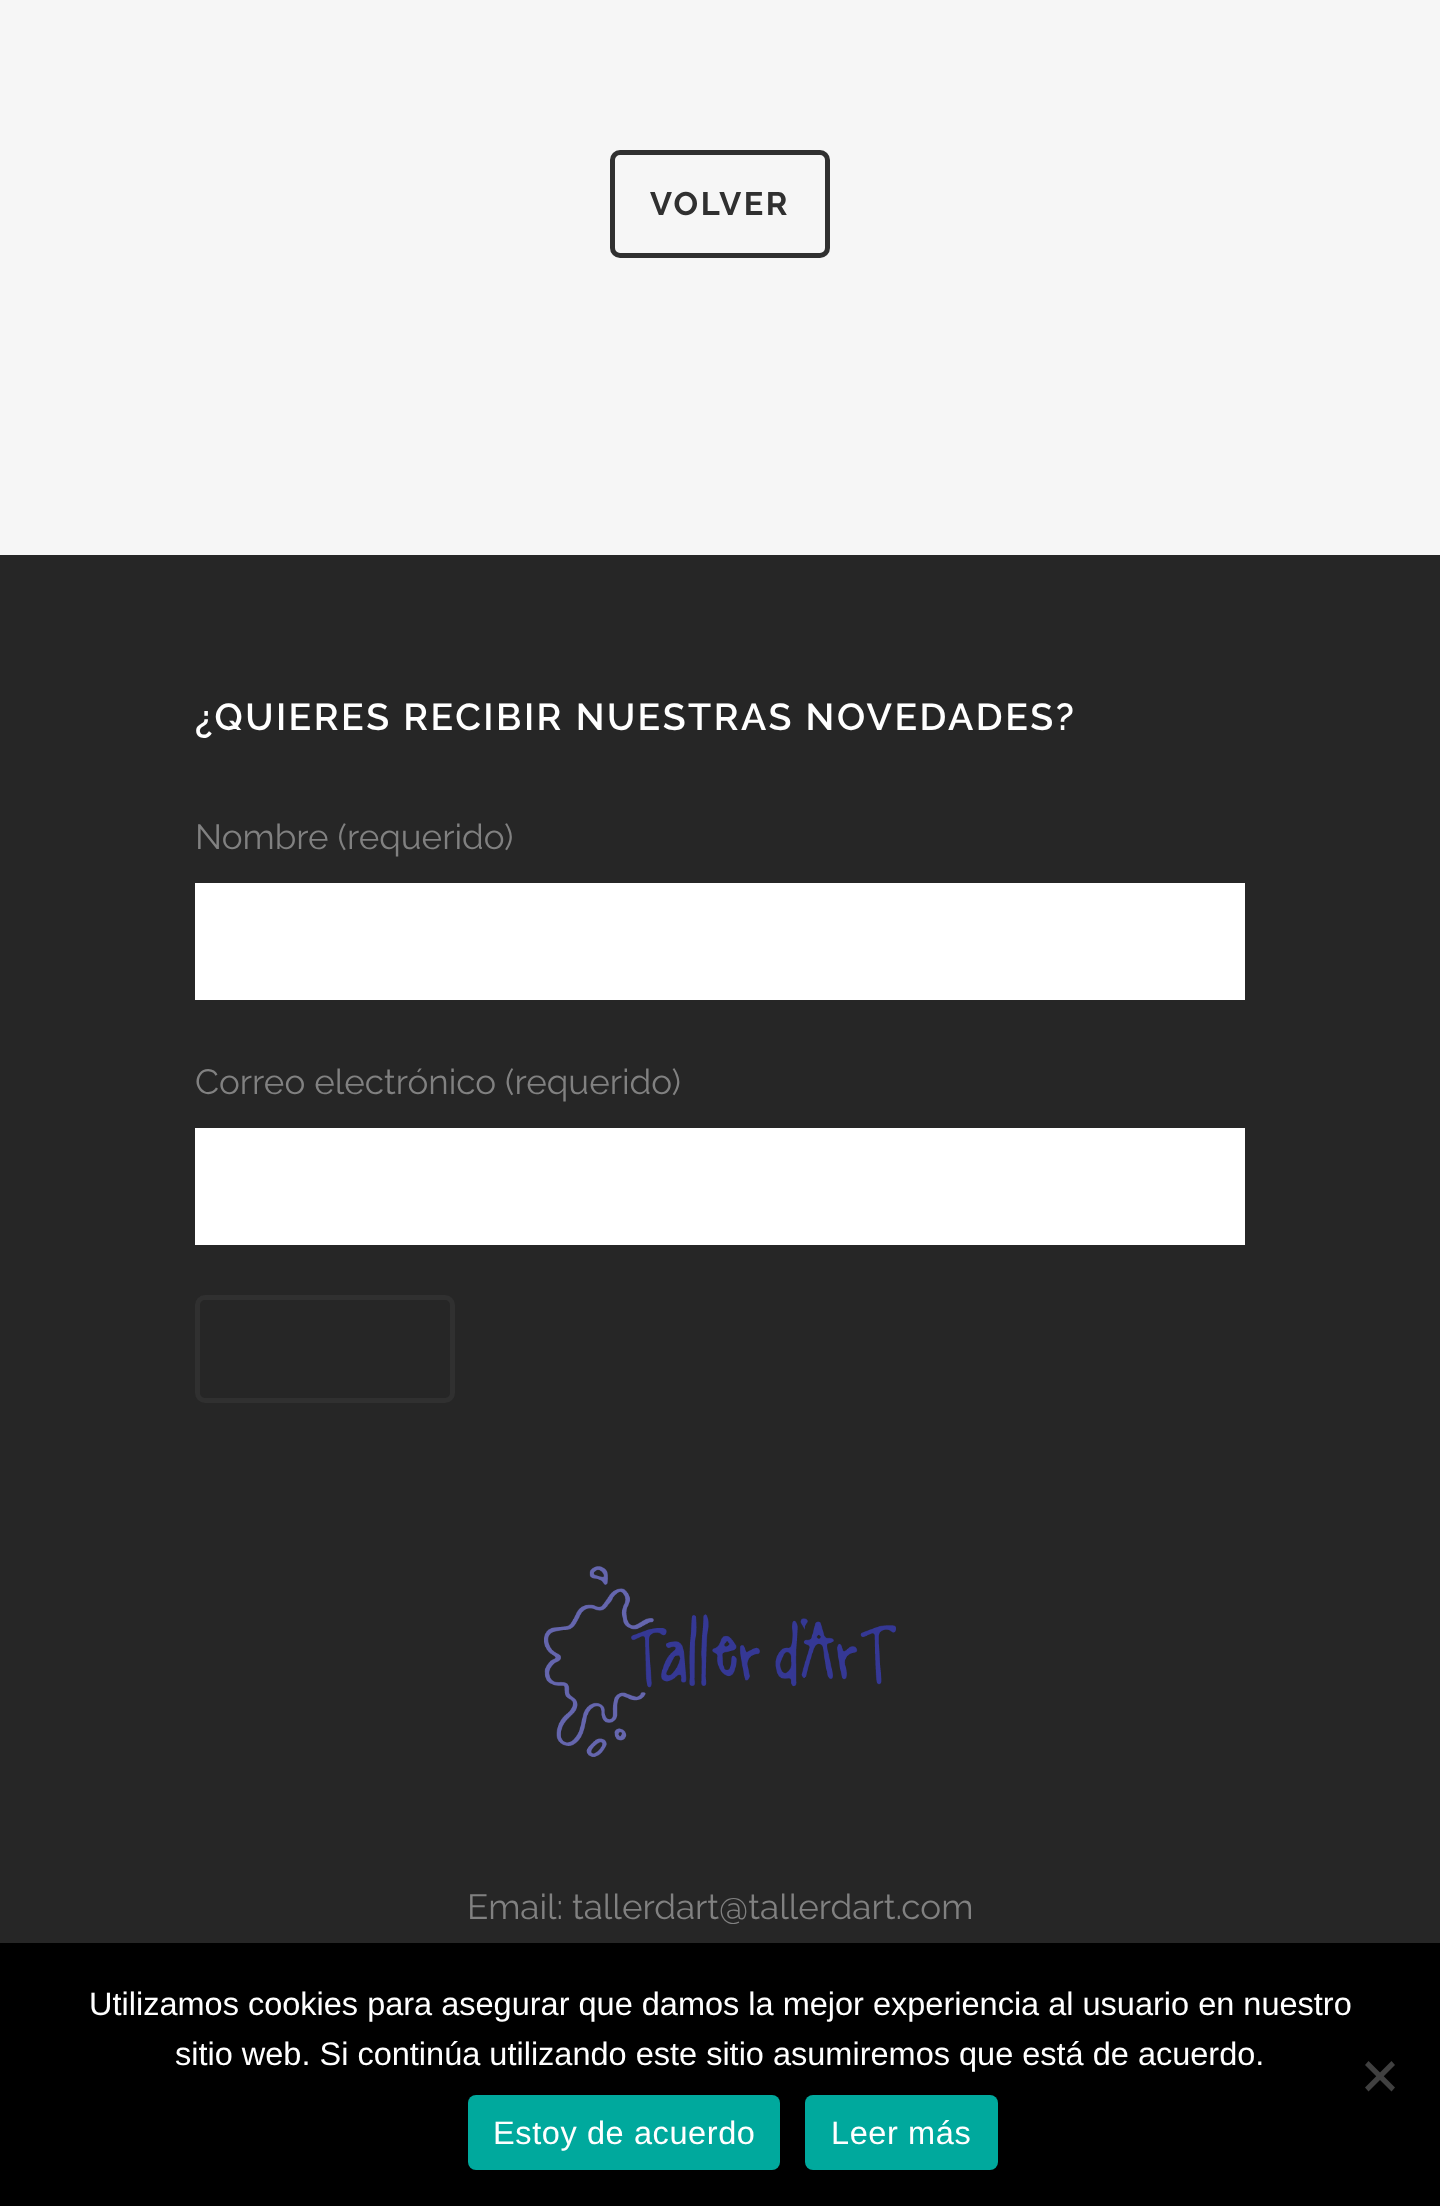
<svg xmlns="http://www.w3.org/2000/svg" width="1440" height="2206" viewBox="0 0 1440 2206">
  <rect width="100%" height="100%" fill="rgb(246,246,246)"/>
  <rect x="612.5" y="152.5" width="215" height="103" rx="7.5" fill="none" stroke="rgb(48,48,48)" stroke-width="5"/>
  <text x="650" y="215" font-family="Raleway" font-size="32.5" font-weight="bold" letter-spacing="2.5" fill="rgb(48,48,48)">VOLVER</text>
  <rect x="0" y="555" width="1440" height="1388" fill="rgb(38,38,38)"/>
  <text x="195" y="730" font-family="Raleway" font-size="37.5" font-weight="600" letter-spacing="2.5" fill="rgb(255,255,255)">¿QUIERES RECIBIR NUESTRAS NOVEDADES?</text>
  <text x="195" y="849" font-family="Raleway" font-size="35" fill="rgb(129,129,129)">Nombre (requerido)</text>
  <rect x="195" y="883" width="1050" height="117" fill="rgb(255,255,255)"/>
  <text x="195" y="1094" font-family="Raleway" font-size="35" fill="rgb(129,129,129)">Correo electrónico (requerido)</text>
  <rect x="195" y="1128" width="1050" height="117" fill="rgb(255,255,255)"/>
  <rect x="197.5" y="1297.5" width="255" height="103" rx="7.5" fill="none" stroke="rgb(48,48,48)" stroke-width="5"/>
  <image x="544" y="1566" width="352" height="191" href="pic1.png"/>
  <text x="467" y="1919" font-family="Raleway" font-size="35" fill="rgb(129,129,129)">Email: tallerdart@tallerdart.com</text>
  <rect x="0" y="1943" width="1440" height="263" fill="rgb(0,0,0)"/>
  <g font-family="Liberation Sans" font-size="32.5" fill="rgb(255,255,255)">
    <text x="89" y="2015">Utilizamos cookies para asegurar que damos la mejor experiencia al usuario en nuestro</text>
    <text x="175" y="2065">sitio web. Si continúa utilizando este sitio asumiremos que está de acuerdo.</text>
  </g>
  <path d="M1391.5 2061L1395 2065L1368.5 2091.5L1365 2087.5Z" fill="rgb(64,64,64)"/>
  <path d="M1365 2065L1368.5 2061L1395 2087.5L1391.5 2091.5Z" fill="rgb(64,64,64)"/>
  <rect x="468" y="2095" width="312" height="75" rx="8" fill="rgb(0,169,157)"/>
  <text x="493" y="2144" font-family="Liberation Sans" font-size="32.5" letter-spacing="0.6" fill="rgb(255,255,255)">Estoy de acuerdo</text>
  <rect x="805" y="2095" width="193" height="75" rx="8" fill="rgb(0,169,157)"/>
  <text x="831" y="2144" font-family="Liberation Sans" font-size="32.5" letter-spacing="0.6" fill="rgb(255,255,255)">Leer más</text>
</svg>
